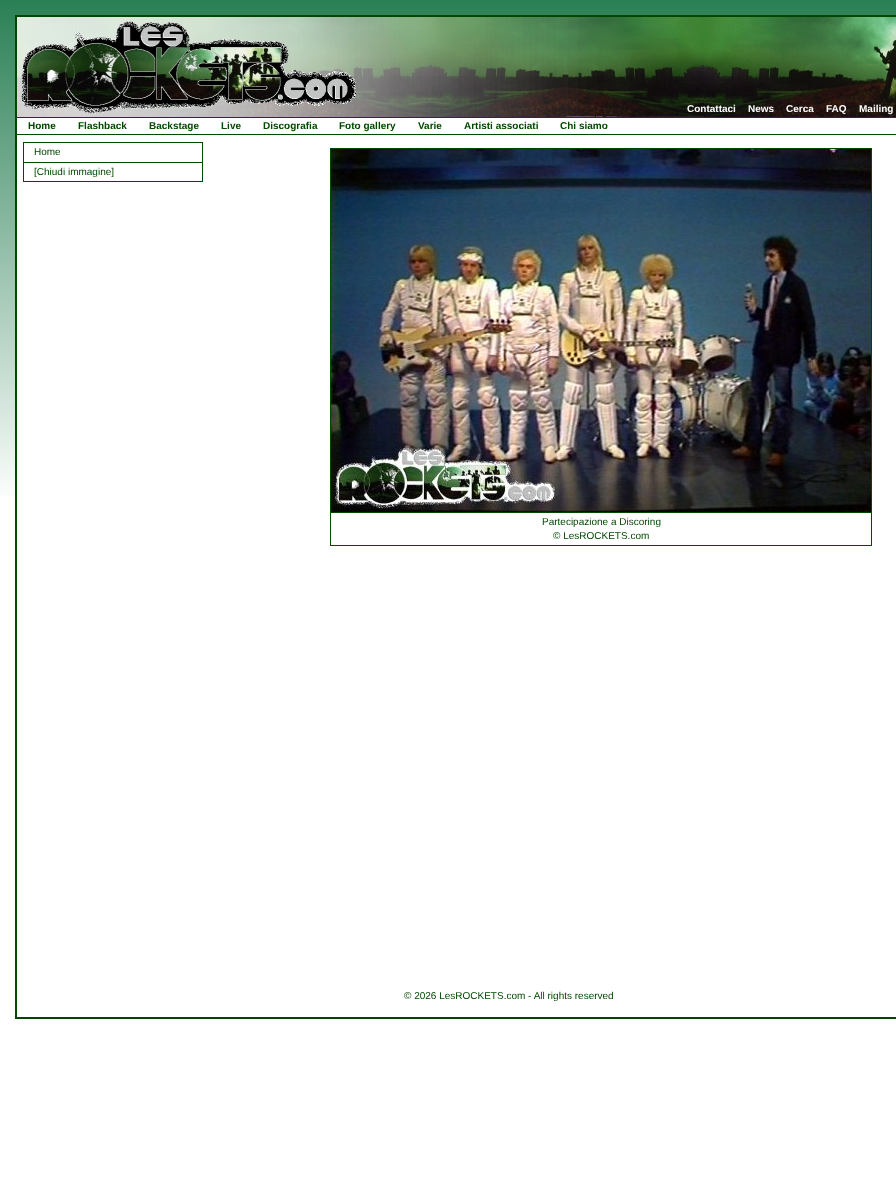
<svg xmlns="http://www.w3.org/2000/svg" width="896" height="1183" viewBox="0 0 896 1183">
  <rect width="100%" height="100%" fill="rgb(255,255,255)"/>
  <image x="0" y="0" width="896" height="496" href="pic1.png"/>
  <rect x="17" y="118" width="879" height="378" fill="rgb(255,255,255)"/>
  <rect x="15" y="15" width="881" height="2" fill="rgb(0,72,0)"/>
  <rect x="15" y="15" width="2" height="960" fill="rgb(0,72,0)"/>
  <image x="17" y="17" width="879" height="100" href="pic2.png"/>
  <g font-family="Liberation Sans" font-size="10" font-weight="bold" fill="rgb(255,255,255)">
    <text x="687" y="112">Contattaci</text>
    <text x="748" y="112">News</text>
    <text x="786" y="112">Cerca</text>
    <text x="826" y="112">FAQ</text>
    <text x="859" y="112">Mailing</text>
  </g>
  <rect x="17" y="117" width="879" height="1" fill="rgb(0,72,0)"/>
  <rect x="17" y="134" width="879" height="1" fill="rgb(0,72,0)"/>
  <g font-family="Liberation Sans" font-size="10" font-weight="bold" fill="rgb(0,72,0)">
    <text x="28" y="129">Home</text>
    <text x="78" y="129">Flashback</text>
    <text x="149" y="129">Backstage</text>
    <text x="221" y="129">Live</text>
    <text x="263" y="129">Discografia</text>
    <text x="339" y="129">Foto gallery</text>
    <text x="418" y="129">Varie</text>
    <text x="464" y="129">Artisti associati</text>
    <text x="560" y="129">Chi siamo</text>
  </g>
  <rect x="23.5" y="142.5" width="179" height="20" fill="none" stroke="rgb(0,72,0)"/>
  <text x="34" y="155" font-family="Liberation Sans" font-size="10" fill="rgb(0,72,0)">Home</text>
  <rect x="23.5" y="162.5" width="179" height="19" fill="none" stroke="rgb(0,72,0)"/>
  <text x="34" y="175" font-family="Liberation Sans" font-size="10" fill="rgb(0,72,0)">[Chiudi immagine]</text>
  <rect x="330" y="148" width="542" height="1" fill="rgb(0,72,0)"/>
  <rect x="330" y="148" width="1" height="364" fill="rgb(0,72,0)"/>
  <image x="331" y="149" width="540" height="363" href="pic3.png"/>
  <rect x="871" y="148" width="1" height="364" fill="rgb(0,72,0)"/>
  <rect x="330.5" y="512.5" width="541" height="33" fill="none" stroke="rgb(0,72,0)"/>
  <g font-family="Liberation Sans" font-size="10" fill="rgb(0,72,0)">
    <text x="542" y="525">Partecipazione a Discoring</text>
    <text x="553" y="539">© LesROCKETS.com</text>
  </g>
  <rect x="15" y="1017" width="881" height="2" fill="rgb(0,72,0)"/>
  <rect x="15" y="975" width="2" height="44" fill="rgb(0,72,0)"/>
  <text x="404" y="999" font-family="Liberation Sans" font-size="10" fill="rgb(0,72,0)">© 2026 LesROCKETS.com - All rights reserved</text>
</svg>
